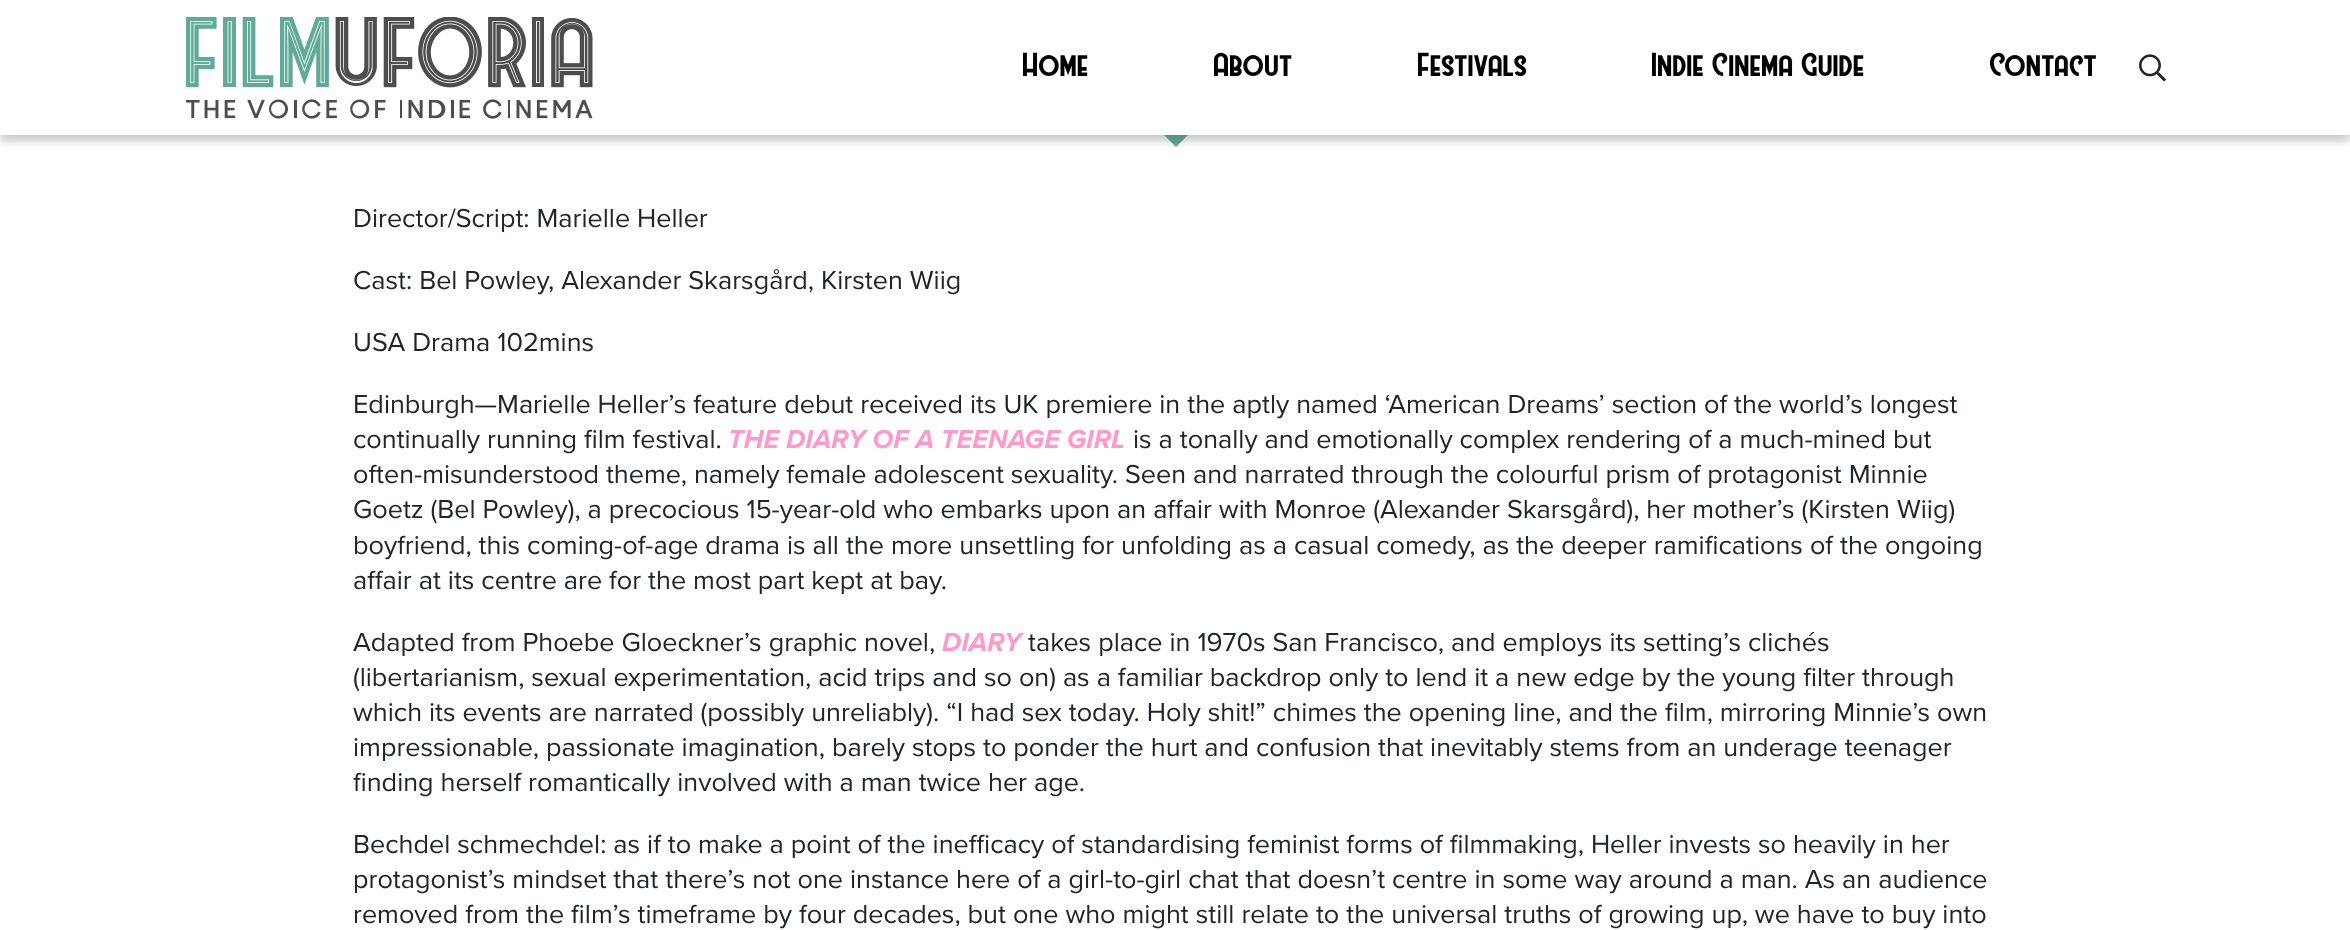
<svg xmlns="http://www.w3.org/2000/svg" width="2350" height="930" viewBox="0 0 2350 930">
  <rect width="100%" height="100%" fill="rgb(255,255,255)"/>
  <path d="M1149 120H1203L1176 147Z" fill="rgb(96,170,151)"/>
  <rect x="0" y="6" width="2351" height="135" fill="rgba(77,77,77,0.3)" filter="blur(4px)"/>
  <rect x="0" y="0" width="2350" height="135" fill="rgb(255,255,255)"/>
  <image x="186" y="17" width="407" height="102" href="pic1.png"/>
  <g font-family="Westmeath" font-size="29.75" fill="rgb(0,0,0)">
    <text x="1023" y="76">Home</text>
    <text x="1214" y="76">About</text>
    <text x="1418" y="76">Festivals</text>
    <text x="1652" y="76">Indie Cinema Guide</text>
    <text x="1990" y="76">Contact</text>
  </g>
  <image x="2139" y="54" width="27" height="28" href="pic2.png"/>
  <g font-family="Proxima Nova" font-size="27" fill="rgb(33,37,41)">
    <text x="353" y="227">Director/Script: Marielle Heller</text>
    <text x="353" y="289">Cast: Bel Powley, Alexander Skarsgård, Kirsten Wiig</text>
    <text x="353" y="351">USA Drama 102mins</text>
    <text>
      <tspan x="353" y="413">Edinburgh—Marielle Heller’s feature debut received its UK premiere in the aptly named ‘American Dreams’ section of the world’s longest</tspan>
      <tspan x="353" y="448">continually running film festival.</tspan>
    </text>
  </g>
  <text x="728" y="448" font-family="Proxima Nova" font-size="27" font-weight="bold" font-style="italic" fill="rgb(255,153,204)">THE DIARY OF A TEENAGE GIRL</text>
  <g font-family="Proxima Nova" font-size="27" fill="rgb(33,37,41)">
    <text x="1133" y="448">is a tonally and emotionally complex rendering of a much-mined but</text>
    <text>
      <tspan x="353" y="483">often-misunderstood theme, namely female adolescent sexuality. Seen and narrated through the colourful prism of protagonist Minnie</tspan>
      <tspan x="353" y="518">Goetz (Bel Powley), a precocious 15-year-old who embarks upon an affair with Monroe (Alexander Skarsgård), her mother’s (Kirsten Wiig)</tspan>
      <tspan x="353" y="554">boyfriend, this coming-of-age drama is all the more unsettling for unfolding as a casual comedy, as the deeper ramifications of the ongoing</tspan>
      <tspan x="353" y="589">affair at its centre are for the most part kept at bay.</tspan>
    </text>
    <text x="353" y="651">Adapted from Phoebe Gloeckner’s graphic novel,</text>
  </g>
  <text x="942" y="651" font-family="Proxima Nova" font-size="27" font-weight="bold" font-style="italic" fill="rgb(255,153,204)">DIARY</text>
  <g font-family="Proxima Nova" font-size="27" fill="rgb(33,37,41)">
    <text x="1028" y="651">takes place in 1970s San Francisco, and employs its setting’s clichés</text>
    <text>
      <tspan x="353" y="686">(libertarianism, sexual experimentation, acid trips and so on) as a familiar backdrop only to lend it a new edge by the young filter through</tspan>
      <tspan x="353" y="721">which its events are narrated (possibly unreliably). “I had sex today. Holy shit!” chimes the opening line, and the film, mirroring Minnie’s own</tspan>
      <tspan x="353" y="756">impressionable, passionate imagination, barely stops to ponder the hurt and confusion that inevitably stems from an underage teenager</tspan>
      <tspan x="353" y="791">finding herself romantically involved with a man twice her age.</tspan>
    </text>
    <text>
      <tspan x="353" y="853">Bechdel schmechdel: as if to make a point of the inefficacy of standardising feminist forms of filmmaking, Heller invests so heavily in her</tspan>
      <tspan x="353" y="888">protagonist’s mindset that there’s not one instance here of a girl-to-girl chat that doesn’t centre in some way around a man. As an audience</tspan>
      <tspan x="353" y="923">removed from the film’s timeframe by four decades, but one who might still relate to the universal truths of growing up, we have to buy into</tspan>
    </text>
  </g>
</svg>
